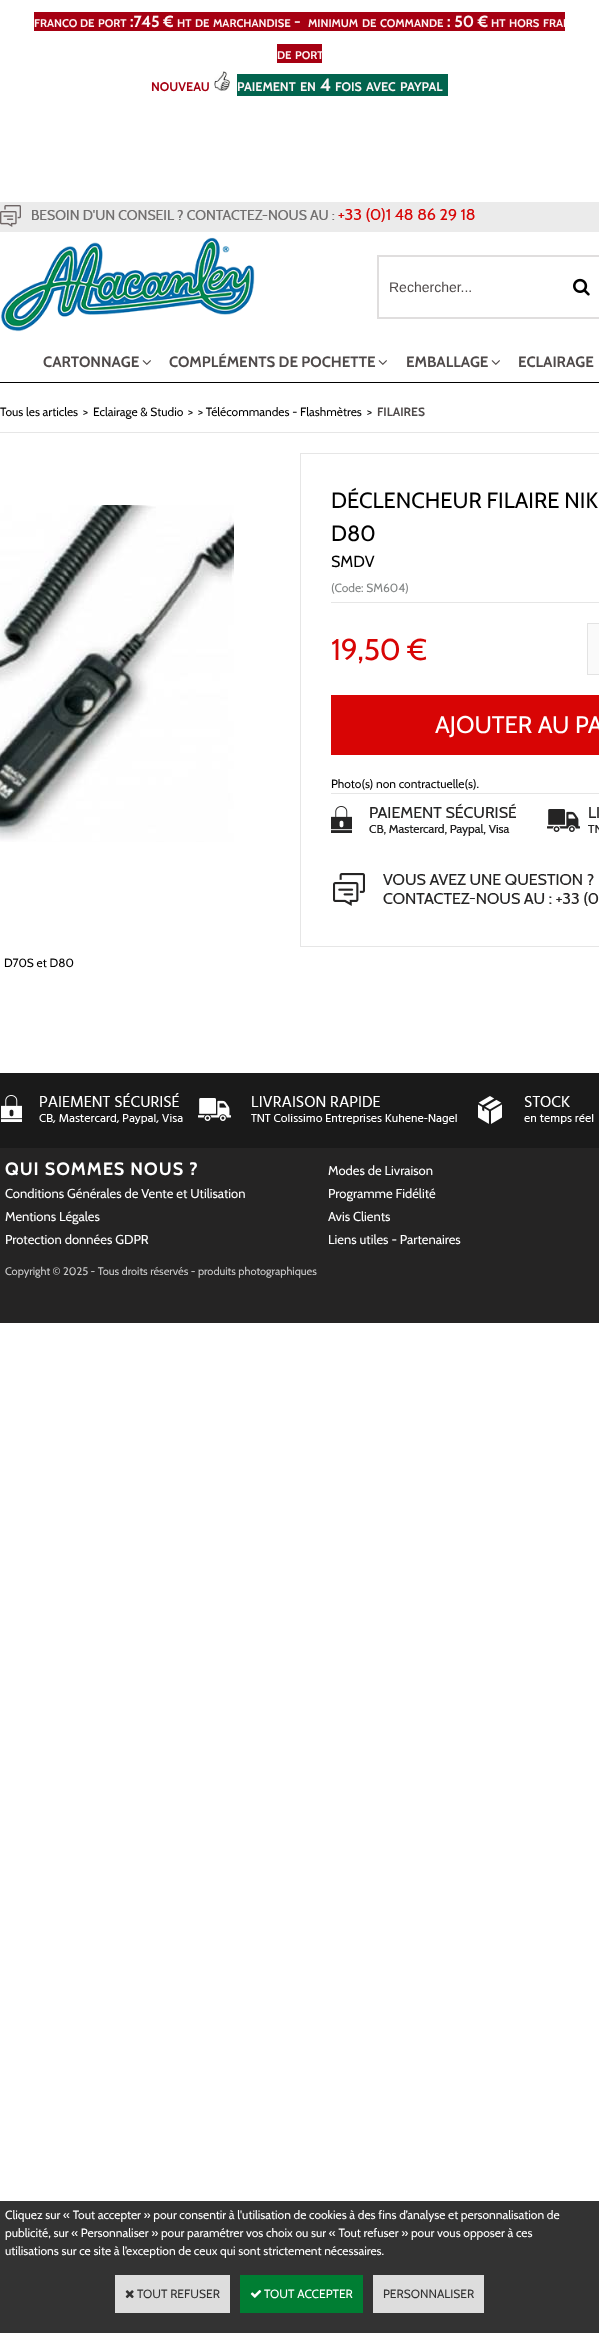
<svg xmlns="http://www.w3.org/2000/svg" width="599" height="2333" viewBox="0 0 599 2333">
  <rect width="100%" height="100%" fill="rgb(255,255,255)"/>
  <rect x="34" y="12" width="531" height="19" fill="rgb(166,0,18)"/>
  <g font-family="Cabin" font-size="11.25" font-weight="bold" fill="rgb(254,245,246)">
    <text x="34" y="27">FRANCO</text>
    <text x="80" y="27">DE</text>
    <text x="98" y="27">PORT</text>
  </g>
  <text x="130" y="27" font-family="Cabin" font-size="16" font-weight="bold" fill="rgb(254,245,246)">:745 €</text>
  <g font-family="Cabin" font-size="11.25" font-weight="bold" fill="rgb(254,245,246)">
    <text x="177" y="27">HT</text>
    <text x="195" y="27">DE</text>
    <text x="213" y="27">MARCHANDISE</text>
  </g>
  <text x="294" y="27" font-family="Cabin" font-size="16" font-weight="bold" fill="rgb(254,245,246)">-</text>
  <g font-family="Cabin" font-size="11.25" font-weight="bold" fill="rgb(254,245,246)">
    <text x="308" y="27">MINIMUM</text>
    <text x="362" y="27">DE</text>
    <text x="380" y="27">COMMANDE</text>
  </g>
  <text x="447" y="27" font-family="Cabin" font-size="16" font-weight="bold" fill="rgb(254,245,246)">: 50 €</text>
  <g font-family="Cabin" font-size="11.25" font-weight="bold" fill="rgb(254,245,246)">
    <text x="491" y="27">HT</text>
    <text x="509" y="27">HORS</text>
    <text x="543" y="27">FRAI</text>
  </g>
  <rect x="277" y="44" width="45" height="19" fill="rgb(166,0,18)"/>
  <g font-family="Cabin" font-size="11.25" font-weight="bold" fill="rgb(254,245,246)">
    <text x="277" y="59">DE</text>
    <text x="295" y="59">PORT</text>
  </g>
  <text x="151" y="91" font-family="Cabin" font-size="12.5" font-weight="bold" fill="rgb(166,0,18)">NOUVEAU</text>
  <image x="214" y="71" width="16" height="20" href="pic1.png"/>
  <rect x="237" y="74" width="211" height="22" fill="rgb(2,100,78)"/>
  <g font-family="Cabin" font-size="12.5" font-weight="bold" fill="rgb(254,245,246)">
    <text x="237" y="91">PAIEMENT</text>
    <text x="300" y="91">EN</text>
  </g>
  <text x="320" y="91" font-family="Cabin" font-size="18" font-weight="bold" fill="rgb(254,245,246)">4</text>
  <g font-family="Cabin" font-size="12.5" font-weight="bold" fill="rgb(254,245,246)">
    <text x="335" y="91">FOIS</text>
    <text x="366" y="91">AVEC</text>
    <text x="400" y="91">PAYPAL</text>
  </g>
  <rect x="0" y="202" width="599" height="30" fill="rgb(235,235,235)"/>
  <rect x="0" y="382" width="599" height="1" fill="rgb(0,0,0)"/>
  <image x="0" y="205" width="475" height="22" href="pic2.png"/>
  <image x="0" y="237" width="255" height="95" href="pic3.png"/>
  <rect x="378" y="256" width="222" height="62" fill="none" stroke="rgb(224,222,222)" stroke-width="2"/>
  <text x="389" y="292" font-family="Liberation Sans" font-size="14" fill="rgb(79,74,74)">Rechercher...</text>
  <image x="573" y="278" width="17" height="18" href="pic4.png"/>
  <text x="43" y="367" font-family="Cabin" font-size="15" font-weight="bold" fill="rgb(79,74,74)">CARTONNAGE</text>
  <image x="142" y="360" width="9" height="5" href="pic5.png"/>
  <text x="169" y="367" font-family="Cabin" font-size="15" font-weight="bold" fill="rgb(79,74,74)">COMPLÉMENTS DE POCHETTE</text>
  <image x="378" y="360" width="9" height="5" href="pic5.png"/>
  <text x="406" y="367" font-family="Cabin" font-size="15" font-weight="bold" fill="rgb(79,74,74)">EMBALLAGE</text>
  <image x="491" y="360" width="9" height="5" href="pic5.png"/>
  <text x="518" y="367" font-family="Cabin" font-size="15" font-weight="bold" fill="rgb(79,74,74)">ECLAIRAGE</text>
  <rect x="0" y="432" width="599" height="1" fill="rgb(230,230,230)"/>
  <g font-family="Cabin" font-size="12" fill="rgb(0,0,0)">
    <text x="0" y="416">Tous les articles</text>
    <text x="83" y="416">&gt;</text>
    <text x="93" y="416">Eclairage &amp; Studio</text>
    <text x="188" y="416">&gt;</text>
    <text x="198" y="416">&gt; Télécommandes - Flashmètres</text>
    <text x="367" y="416">&gt;</text>
  </g>
  <text x="377" y="416" font-family="Cabin" font-size="12" font-weight="bold" fill="rgb(79,74,74)">FILAIRES</text>
  <image x="0" y="505" width="234" height="337" href="pic6.png"/>
  <rect x="300.5" y="453.5" width="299" height="493" fill="none" stroke="rgb(230,230,230)"/>
  <g font-family="Cabin" font-size="22" fill="rgb(0,0,0)">
    <text>
      <tspan x="331" y="508">DÉCLENCHEUR FILAIRE NIK</tspan>
      <tspan x="331" y="541">D80</tspan>
    </text>
  </g>
  <text x="331" y="567" font-family="Cabin" font-size="16" fill="rgb(0,0,0)">SMDV</text>
  <rect x="331" y="602" width="268" height="1" fill="rgb(230,230,230)"/>
  <text x="331" y="592" font-family="Cabin" font-size="12" fill="rgb(130,133,133)">(Code: SM604)</text>
  <text x="331" y="660" font-family="Cabin" font-size="30" fill="rgb(216,5,5)">19,50 €</text>
  <rect x="587.5" y="623.5" width="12" height="51" fill="none" stroke="rgb(227,227,227)"/>
  <rect x="588" y="624" width="11" height="50" fill="rgb(250,250,250)"/>
  <rect x="331" y="695" width="268" height="60" fill="rgb(216,5,5)"/>
  <text x="435" y="733" font-family="Cabin" font-size="24" fill="rgb(255,255,255)">AJOUTER AU PA</text>
  <text x="331" y="788" font-family="Cabin" font-size="12" fill="rgb(0,0,0)">Photo(s) non contractuelle(s).</text>
  <rect x="331" y="793" width="268" height="1" fill="rgb(230,230,230)"/>
  <image x="331" y="803" width="185" height="33" href="pic7.png"/>
  <image x="547" y="807" width="52" height="26" href="pic8.png"/>
  <image x="333" y="873" width="266" height="33" href="pic9.png"/>
  <text x="4" y="967" font-family="Cabin" font-size="12" fill="rgb(0,0,0)">D70S et D80</text>
  <rect x="0" y="1148" width="599" height="175" fill="rgb(37,36,36)"/>
  <rect x="0" y="1073" width="599" height="75" fill="rgb(26,26,26)"/>
  <image x="1" y="1093" width="182" height="31" href="pic10.png"/>
  <image x="198" y="1096" width="259" height="28" href="pic11.png"/>
  <image x="478" y="1096" width="116" height="28" href="pic12.png"/>
  <text x="5" y="1175" font-family="Cabin" font-size="18" font-weight="bold" letter-spacing="1" fill="rgb(255,255,255)">QUI SOMMES NOUS ?</text>
  <g font-family="Cabin" font-size="13" fill="rgb(255,255,255)">
    <text x="328" y="1175">Modes de Livraison</text>
    <text x="5" y="1198">Conditions Générales de Vente et Utilisation</text>
    <text x="328" y="1198">Programme Fidélité</text>
    <text x="5" y="1221">Mentions Légales</text>
    <text x="328" y="1221">Avis Clients</text>
    <text x="5" y="1244">Protection données GDPR</text>
    <text x="328" y="1244">Liens utiles - Partenaires</text>
  </g>
  <text x="5" y="1275" font-family="Cabin" font-size="11" fill="rgb(204,204,204)">Copyright © 2025 - Tous droits réservés - produits photographiques</text>
  <rect x="0" y="2201" width="599" height="132" fill="rgb(51,51,51)"/>
  <g font-family="Cabin" font-size="12" fill="rgb(255,255,255)">
    <text>
      <tspan x="5" y="2219">Cliquez sur « Tout accepter » pour consentir à l'utilisation de cookies à des fins d’analyse et personnalisation de</tspan>
      <tspan x="5" y="2237">publicité, sur « Personnaliser » pour paramétrer vos choix ou sur « Tout refuser » pour vous opposer à ces</tspan>
      <tspan x="5" y="2255">utilisations sur ce site à l’exception de ceux qui sont strictement nécessaires.</tspan>
    </text>
  </g>
  <rect x="115" y="2275" width="115" height="38" fill="rgb(221,221,221)"/>
  <image x="125" y="2290" width="9" height="9" href="pic13.png"/>
  <text x="137" y="2298" font-family="Cabin" font-size="12" fill="rgb(51,51,51)">TOUT REFUSER</text>
  <rect x="240" y="2275" width="123" height="38" fill="rgb(0,126,51)"/>
  <image x="250" y="2290" width="12" height="8" href="pic14.png"/>
  <text x="264" y="2298" font-family="Cabin" font-size="12" fill="rgb(255,255,255)">TOUT ACCEPTER</text>
  <rect x="373" y="2275" width="111" height="38" fill="rgb(221,221,221)"/>
  <text x="383" y="2298" font-family="Cabin" font-size="12" fill="rgb(51,51,51)">PERSONNALISER</text>
</svg>
